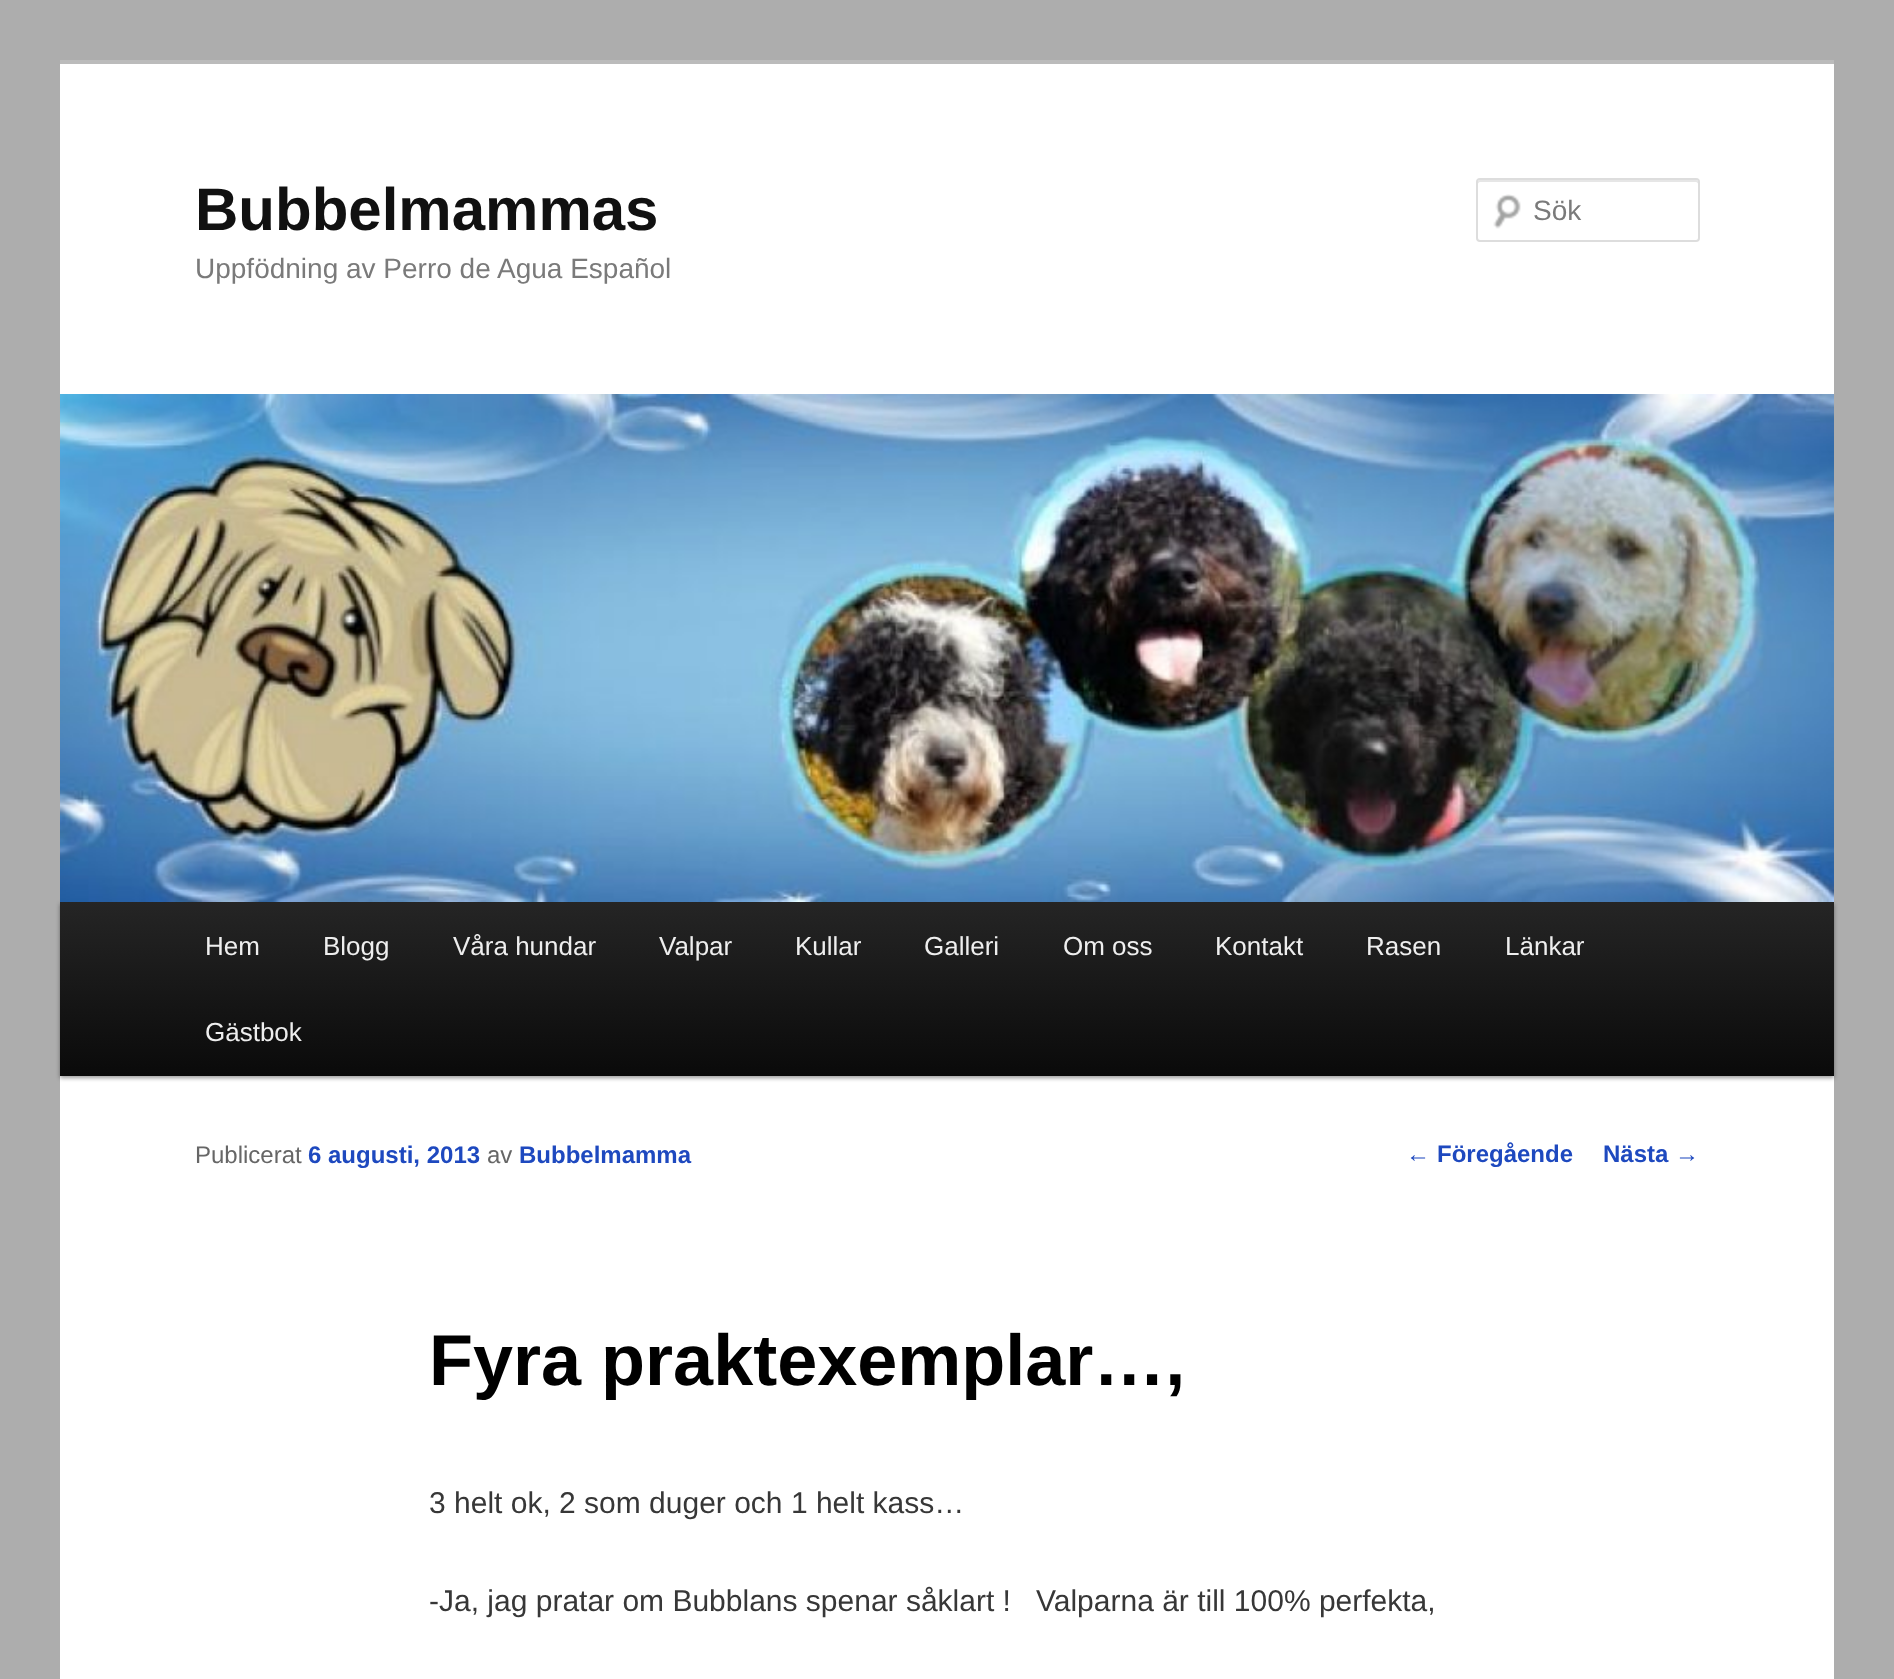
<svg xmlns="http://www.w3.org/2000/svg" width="1894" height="1679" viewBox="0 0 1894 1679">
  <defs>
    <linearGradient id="g1" gradientUnits="userSpaceOnUse" x1="947" y1="902" x2="947" y2="1076"><stop offset="0" stop-color="rgb(37,37,37)"/><stop offset="1" stop-color="rgb(10,10,10)"/></linearGradient>
  </defs>
  <rect width="100%" height="100%" fill="rgb(173,173,173)"/>
  <rect x="60" y="64" width="1774" height="1615" fill="rgb(255,255,255)"/>
  <rect x="60" y="60" width="1774" height="4" fill="rgb(187,187,187)"/>
  <text x="195" y="230" font-family="Liberation Sans" font-size="60" font-weight="bold" fill="rgb(17,17,17)">Bubbelmammas</text>
  <text x="195" y="278" font-family="Liberation Sans" font-size="28" fill="rgb(122,122,122)">Uppfödning av Perro de Agua Español</text>
  <image x="1493" y="194" width="28" height="35" href="pic1.png"/>
  <path d="M1480 182H1696C1697 182 1698 183 1698 184V182C1698 181 1697 180 1696 180H1480C1479 180 1478 181 1478 182V184C1478 183 1479 182 1480 182Z" fill="rgb(230,230,230)"/>
  <rect x="1477" y="179" width="222" height="62" rx="3" fill="none" stroke="rgb(221,221,221)" stroke-width="2"/>
  <text x="1533" y="220" font-family="Liberation Sans" font-size="28" fill="rgb(122,122,122)">Sök</text>
  <rect x="60" y="904" width="1774" height="174" fill="rgba(0,0,0,0.4)" filter="blur(2px)"/>
  <image x="60" y="394" width="1774" height="508" href="pic2.png"/>
  <rect x="60" y="902" width="1774" height="174" fill="url(#g1)"/>
  <g font-family="Liberation Sans" font-size="26" fill="rgb(238,238,238)">
    <text x="205" y="955">Hem</text>
    <text x="323" y="955">Blogg</text>
    <text x="453" y="955">Våra hundar</text>
    <text x="659" y="955">Valpar</text>
    <text x="795" y="955">Kullar</text>
    <text x="924" y="955">Galleri</text>
    <text x="1063" y="955">Om oss</text>
    <text x="1215" y="955">Kontakt</text>
    <text x="1366" y="955">Rasen</text>
    <text x="1505" y="955">Länkar</text>
    <text x="205" y="1041">Gästbok</text>
  </g>
  <text x="195" y="1163" font-family="Liberation Sans" font-size="24" fill="rgb(102,102,102)">Publicerat</text>
  <text x="308" y="1163" font-family="Liberation Sans" font-size="24" font-weight="bold" fill="rgb(30,73,191)">6 augusti, 2013</text>
  <text x="487" y="1163" font-family="Liberation Sans" font-size="24" fill="rgb(102,102,102)">av</text>
  <text x="519" y="1163" font-family="Liberation Sans" font-size="24" font-weight="bold" fill="rgb(30,73,191)">Bubbelmamma</text>
  <text x="429" y="1385" font-family="Liberation Sans" font-size="72" font-weight="bold" fill="rgb(0,0,0)">Fyra praktexemplar…,</text>
  <g font-family="Liberation Sans" font-size="30" fill="rgb(55,55,55)">
    <text x="429" y="1513">3 helt ok, 2 som duger och 1 helt kass…</text>
    <text x="429" y="1611" xml:space="preserve">-Ja, jag pratar om Bubblans spenar såklart !   Valparna är till 100% perfekta,</text>
  </g>
  <text x="1406" y="1162" font-family="Liberation Sans" font-size="24" fill="rgb(30,73,191)">←</text>
  <g font-family="Liberation Sans" font-size="24" font-weight="bold" fill="rgb(30,73,191)">
    <text x="1437" y="1162">Föregående</text>
    <text x="1603" y="1162">Nästa</text>
  </g>
  <text x="1675" y="1162" font-family="Liberation Sans" font-size="24" fill="rgb(30,73,191)">→</text>
</svg>
